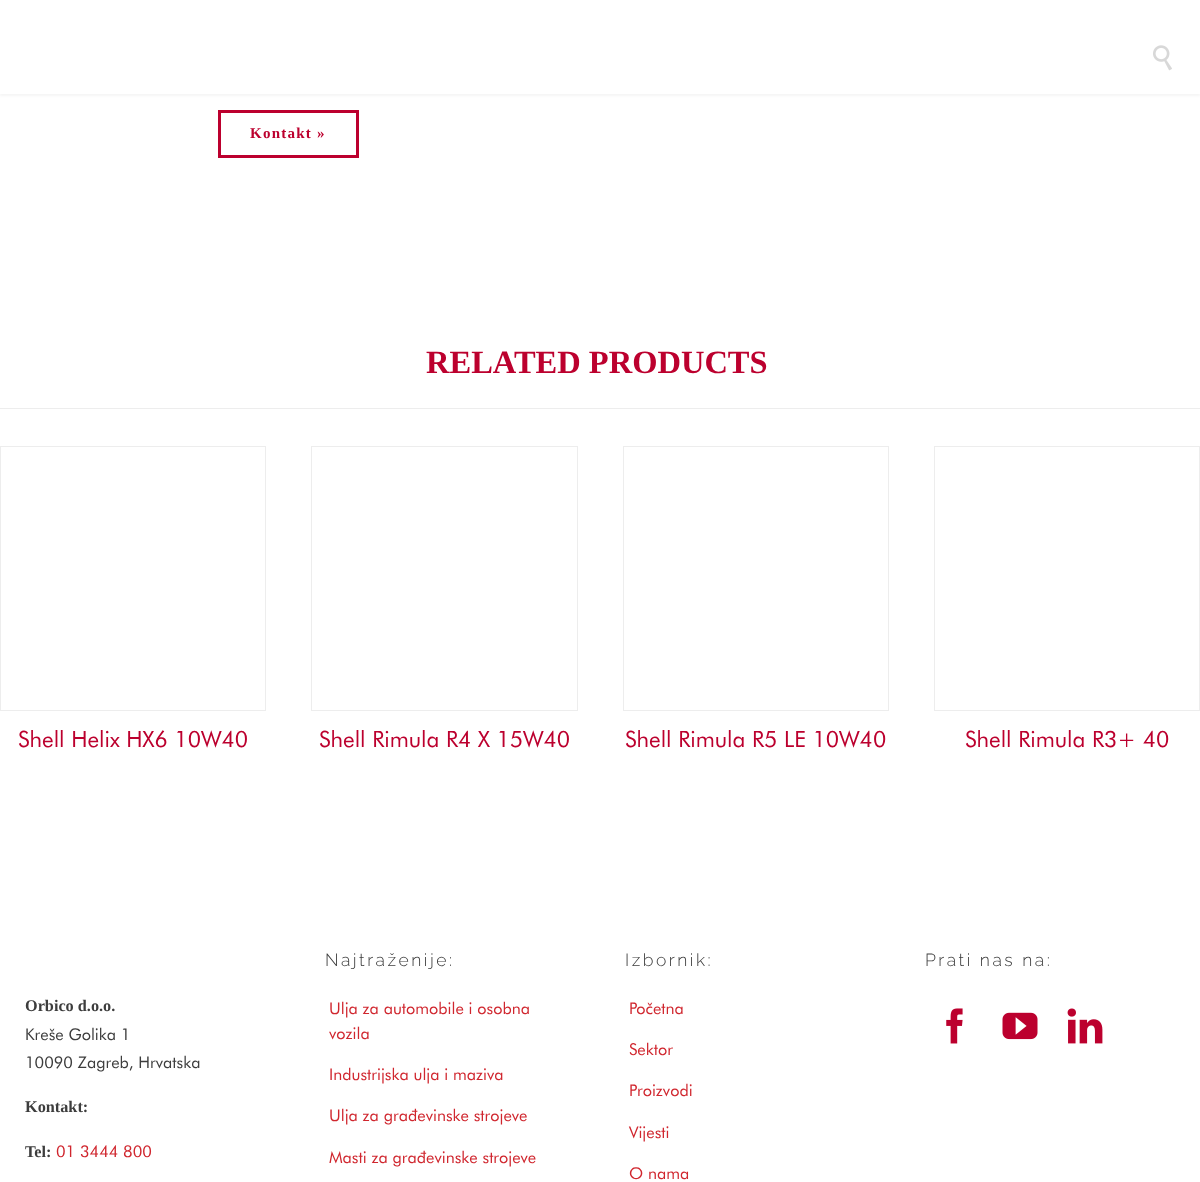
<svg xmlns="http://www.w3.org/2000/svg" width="1200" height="1182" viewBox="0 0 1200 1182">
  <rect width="100%" height="100%" fill="rgb(255,255,255)"/>
  <rect x="0" y="-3" width="1200" height="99" fill="rgba(0,0,0,0.04)" filter="blur(1px)"/>
  <rect x="0" y="0" width="1200" height="94" fill="rgb(255,255,255)"/>
  <image x="1153" y="45" width="19" height="26" href="pic1.png"/>
  <rect x="219.5" y="111.5" width="138" height="45" fill="none" stroke="rgb(188,0,46)" stroke-width="3"/>
  <text x="250" y="138" font-family="Liberation Serif" font-size="15" font-weight="bold" letter-spacing="1.25" fill="rgb(188,0,46)">Kontakt »</text>
  <rect x="0" y="408" width="1200" height="1" fill="rgb(237,237,237)"/>
  <text x="426" y="373" font-family="Liberation Serif" font-size="32.5" font-weight="bold" fill="rgb(188,0,46)">RELATED PRODUCTS</text>
  <rect x="0.5" y="446.5" width="265" height="264" fill="none" stroke="rgb(237,237,237)"/>
  <text x="18" y="747" font-family="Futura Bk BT" font-size="22.5" fill="rgb(188,0,46)">Shell Helix HX6 10W40</text>
  <rect x="311.5" y="446.5" width="266" height="264" fill="none" stroke="rgb(237,237,237)"/>
  <text x="319" y="747" font-family="Futura Bk BT" font-size="22.5" fill="rgb(188,0,46)">Shell Rimula R4 X 15W40</text>
  <rect x="623.5" y="446.5" width="265" height="264" fill="none" stroke="rgb(237,237,237)"/>
  <text x="625" y="747" font-family="Futura Bk BT" font-size="22.5" fill="rgb(188,0,46)">Shell Rimula R5 LE 10W40</text>
  <rect x="934.5" y="446.5" width="265" height="264" fill="none" stroke="rgb(237,237,237)"/>
  <text x="965" y="747" font-family="Futura Bk BT" font-size="22.5" fill="rgb(188,0,46)">Shell Rimula R3+ 40</text>
  <text x="325" y="966" font-family="Raleway" font-size="17.5" font-weight="300" letter-spacing="2.5" fill="rgb(61,61,61)">Najtraženije:</text>
  <g font-family="Futura Bk BT" font-size="16.25" fill="rgb(208,38,46)">
    <text>
      <tspan x="329" y="1014">Ulja za automobile i osobna</tspan>
      <tspan x="329" y="1039">vozila</tspan>
    </text>
    <text x="329" y="1080">Industrijska ulja i maziva</text>
    <text x="329" y="1121">Ulja za građevinske strojeve</text>
    <text x="329" y="1163">Masti za građevinske strojeve</text>
  </g>
  <text x="625" y="966" font-family="Raleway" font-size="17.5" font-weight="300" letter-spacing="2.5" fill="rgb(61,61,61)">Izbornik:</text>
  <g font-family="Futura Bk BT" font-size="16.25" fill="rgb(208,38,46)">
    <text x="629" y="1014">Početna</text>
    <text x="629" y="1055">Sektor</text>
    <text x="629" y="1096">Proizvodi</text>
    <text x="629" y="1138">Vijesti</text>
    <text x="629" y="1179">O nama</text>
  </g>
  <text x="925" y="966" font-family="Raleway" font-size="17.5" font-weight="300" letter-spacing="2.5" fill="rgb(61,61,61)">Prati nas na:</text>
  <image x="946" y="1008" width="17" height="36" href="pic2.png"/>
  <image x="1002" y="1012" width="36" height="28" href="pic3.png"/>
  <image x="1067" y="1008" width="36" height="36" href="pic4.png"/>
  <text x="25" y="1011" font-family="Liberation Serif" font-size="16.25" font-weight="bold" fill="rgb(61,61,61)">Orbico d.o.o.</text>
  <g font-family="Futura Bk BT" font-size="16.25" fill="rgb(61,61,61)">
    <text>
      <tspan x="25" y="1040">Kreše Golika 1</tspan>
      <tspan x="25" y="1068">10090 Zagreb, Hrvatska</tspan>
    </text>
  </g>
  <g font-family="Liberation Serif" font-size="16.25" font-weight="bold" fill="rgb(61,61,61)">
    <text x="25" y="1112">Kontakt:</text>
    <text x="25" y="1157">Tel:</text>
  </g>
  <text x="56" y="1157" font-family="Futura Bk BT" font-size="16.25" fill="rgb(208,38,46)">01 3444 800</text>
</svg>
